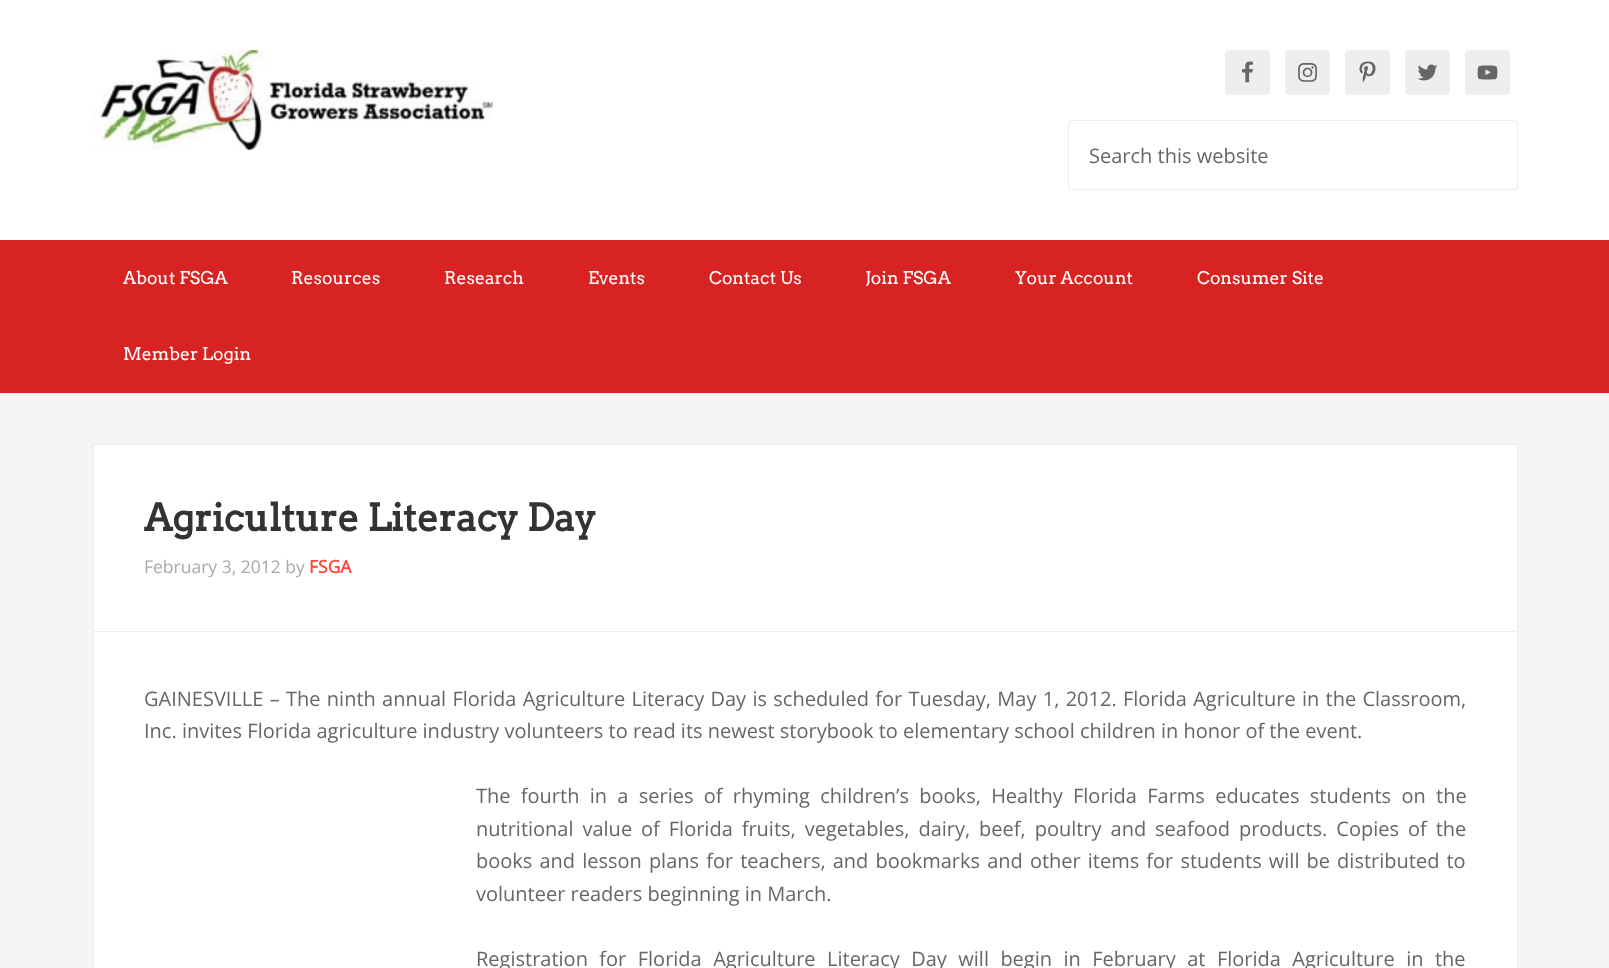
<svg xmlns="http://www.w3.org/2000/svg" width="1609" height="968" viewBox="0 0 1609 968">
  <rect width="100%" height="100%" fill="rgb(255,255,255)"/>
  <image x="92" y="50" width="401" height="100" href="pic1.png"/>
  <rect x="1225" y="50" width="45" height="45" rx="4" fill="rgb(238,238,238)"/>
  <image x="1242" y="61" width="11" height="22" href="pic2.png"/>
  <rect x="1285" y="50" width="45" height="45" rx="4" fill="rgb(238,238,238)"/>
  <image x="1298" y="63" width="19" height="19" href="pic3.png"/>
  <rect x="1345" y="50" width="45" height="45" rx="4" fill="rgb(238,238,238)"/>
  <image x="1359" y="61" width="17" height="22" href="pic4.png"/>
  <rect x="1405" y="50" width="45" height="45" rx="4" fill="rgb(238,238,238)"/>
  <image x="1418" y="64" width="20" height="17" href="pic5.png"/>
  <rect x="1465" y="50" width="45" height="45" rx="4" fill="rgb(238,238,238)"/>
  <image x="1477" y="65" width="21" height="15" href="pic6.png"/>
  <rect x="1068.5" y="120.5" width="449" height="69" rx="3.5" fill="none" stroke="rgb(236,236,236)"/>
  <text x="1089" y="163" font-family="Open Sans" font-size="20" fill="rgb(102,102,102)">Search this website</text>
  <rect x="0" y="240" width="1609" height="153" fill="rgb(216,35,35)"/>
  <g font-family="Arvo" font-size="17.5" fill="rgb(255,255,255)">
    <text x="123" y="284">About FSGA</text>
    <text x="291" y="284">Resources</text>
    <text x="444" y="284">Research</text>
    <text x="588" y="284">Events</text>
    <text x="709" y="284">Contact Us</text>
    <text x="865" y="284">Join FSGA</text>
    <text x="1015" y="284">Your Account</text>
    <text x="1197" y="284">Consumer Site</text>
    <text x="123" y="360">Member Login</text>
  </g>
  <rect x="0" y="394" width="1609" height="574" fill="rgb(245,245,245)"/>
  <rect x="0" y="393" width="1609" height="1" fill="rgb(236,236,236)"/>
  <rect x="93.5" y="444.5" width="1424" height="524" fill="rgb(255,255,255)" stroke="rgb(236,236,236)"/>
  <rect x="94" y="631" width="1422" height="1" fill="rgb(236,236,236)"/>
  <text x="144" y="531" font-family="Arvo" font-size="37.5" font-weight="bold" fill="rgb(51,51,51)">Agriculture Literacy Day</text>
  <text x="144" y="573" font-family="Open Sans" font-size="17.5" fill="rgb(170,170,170)">February 3, 2012 by</text>
  <text x="309" y="573" font-family="Open Sans" font-size="17.5" font-weight="bold" fill="rgb(255,71,58)">FSGA</text>
  <g font-family="Open Sans" font-size="20" fill="rgb(102,102,102)">
    <text>
      <tspan x="144" y="706" word-spacing="1.1">GAINESVILLE – The ninth annual Florida Agriculture Literacy Day is scheduled for Tuesday, May 1, 2012. Florida Agriculture in the Classroom,</tspan>
      <tspan x="144" y="738">Inc. invites Florida agriculture industry volunteers to read its newest storybook to elementary school children in honor of the event.</tspan>
    </text>
    <text>
      <tspan x="476" y="803" word-spacing="5.1">The fourth in a series of rhyming children’s books, Healthy Florida Farms educates students on the</tspan>
      <tspan x="476" y="836" word-spacing="3.75">nutritional value of Florida fruits, vegetables, dairy, beef, poultry and seafood products. Copies of the</tspan>
      <tspan x="476" y="868" word-spacing="1.9">books and lesson plans for teachers, and bookmarks and other items for students will be distributed to</tspan>
      <tspan x="476" y="901">volunteer readers beginning in March.</tspan>
    </text>
    <text x="476" y="966" word-spacing="6.25">Registration for Florida Agriculture Literacy Day will begin in February at Florida Agriculture in the</text>
  </g>
</svg>
